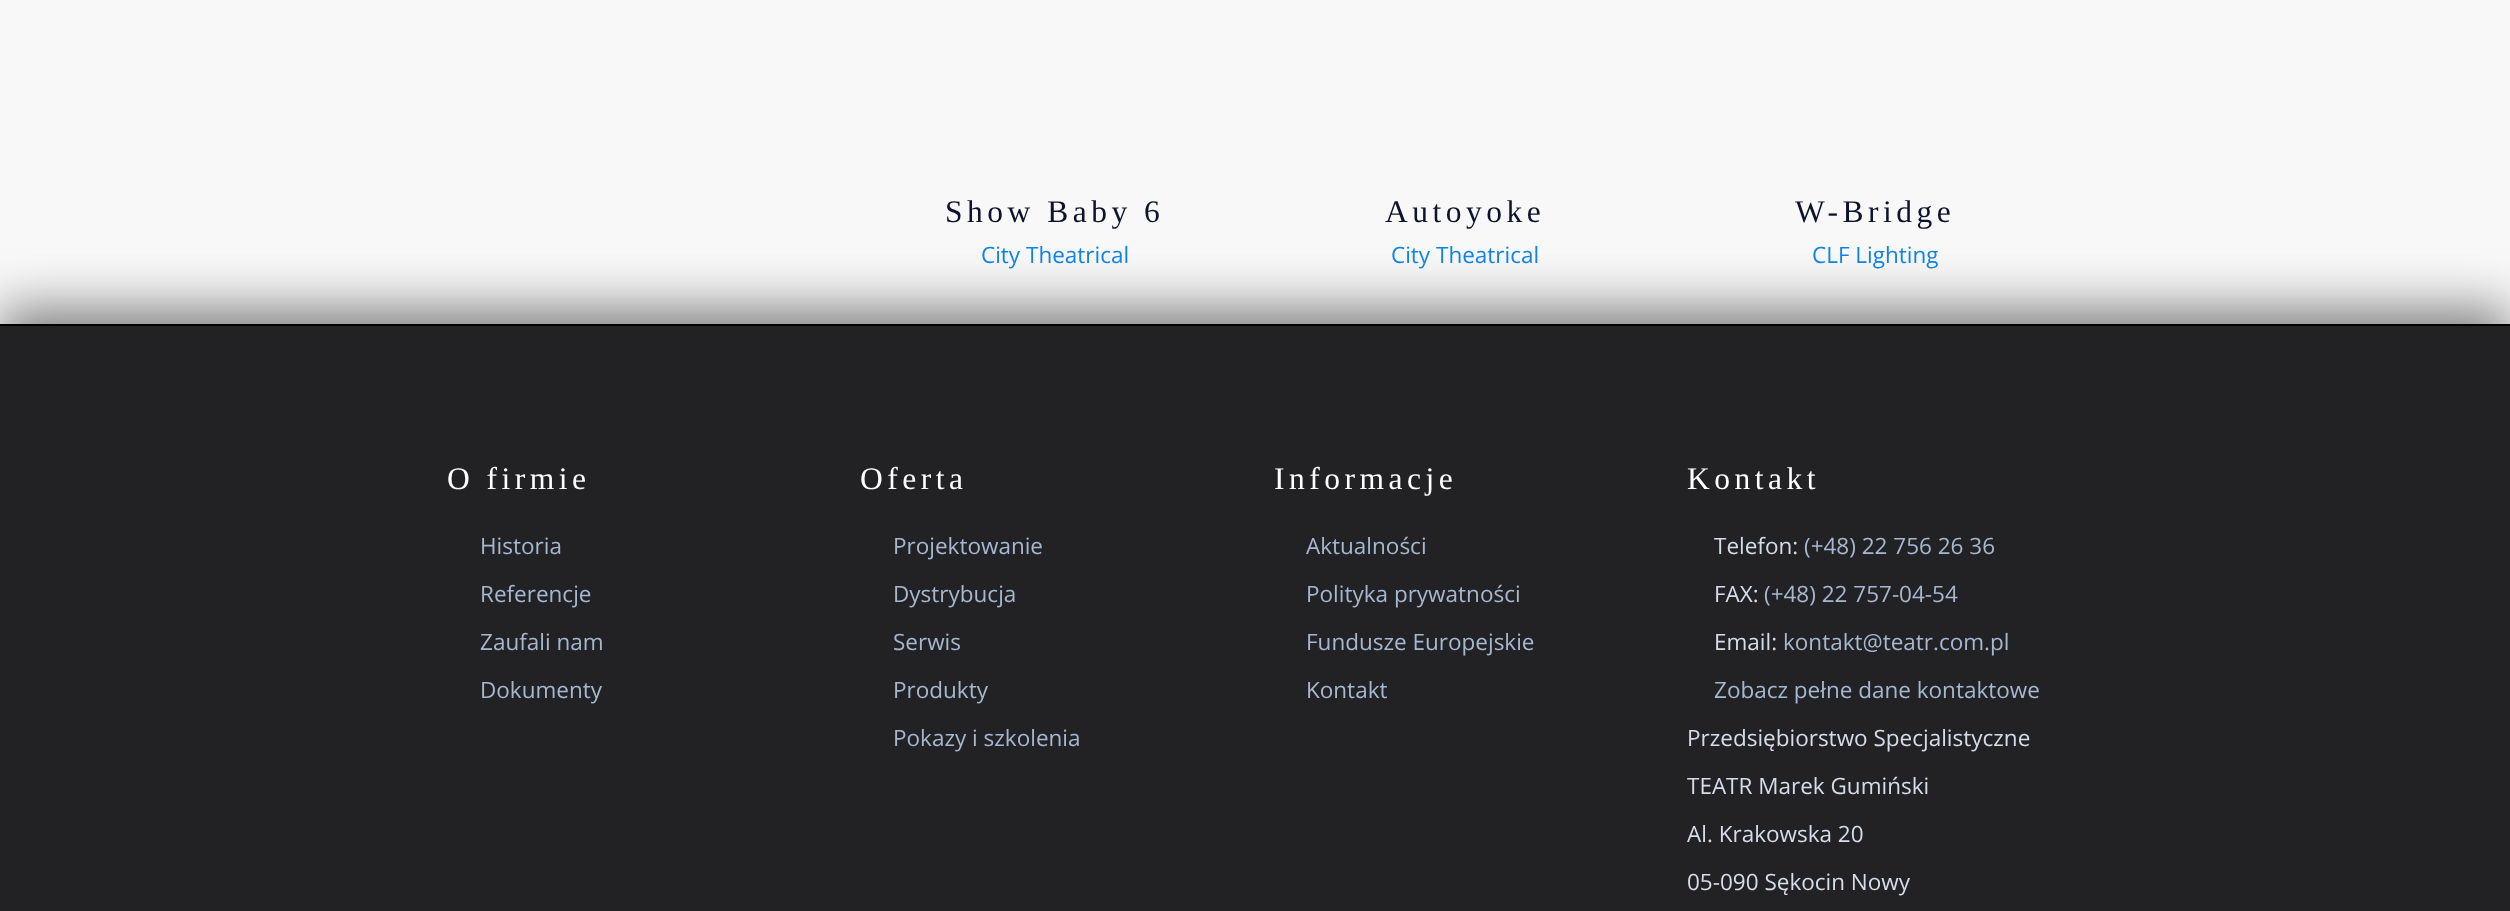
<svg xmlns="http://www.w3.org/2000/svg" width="2510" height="911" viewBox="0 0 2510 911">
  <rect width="100%" height="100%" fill="rgb(248,248,248)"/>
  <text x="945" y="222" font-family="Liberation Serif" font-size="31.5" letter-spacing="4.5" fill="rgb(13,18,45)">Show Baby 6</text>
  <text x="981" y="263" font-family="Open Sans" font-size="22.5" fill="rgb(15,132,231)">City Theatrical</text>
  <text x="1385" y="222" font-family="Liberation Serif" font-size="31.5" letter-spacing="4.5" fill="rgb(13,18,45)">Autoyoke</text>
  <text x="1391" y="263" font-family="Open Sans" font-size="22.5" fill="rgb(15,132,231)">City Theatrical</text>
  <text x="1795" y="222" font-family="Liberation Serif" font-size="31.5" letter-spacing="4.5" fill="rgb(13,18,45)">W-Bridge</text>
  <text x="1812" y="263" font-family="Open Sans" font-size="22.5" fill="rgb(15,132,231)">CLF Lighting</text>
  <rect x="0" y="309" width="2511" height="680" fill="rgb(124,124,124)" filter="blur(26px)"/>
  <rect x="0" y="326" width="2510" height="585" fill="rgb(34,34,36)"/>
  <rect x="0" y="324" width="2510" height="2" fill="rgb(0,0,0)"/>
  <text x="447" y="489" font-family="Liberation Serif" font-size="31.5" letter-spacing="4.5" fill="rgb(255,255,255)">O firmie</text>
  <g font-family="Open Sans" font-size="22.5" fill="rgb(166,183,209)">
    <text x="480" y="554">Historia</text>
    <text x="480" y="602">Referencje</text>
    <text x="480" y="650">Zaufali nam</text>
    <text x="480" y="698">Dokumenty</text>
  </g>
  <text x="860" y="489" font-family="Liberation Serif" font-size="31.5" letter-spacing="4.5" fill="rgb(255,255,255)">Oferta</text>
  <g font-family="Open Sans" font-size="22.5" fill="rgb(166,183,209)">
    <text x="893" y="554">Projektowanie</text>
    <text x="893" y="602">Dystrybucja</text>
    <text x="893" y="650">Serwis</text>
    <text x="893" y="698">Produkty</text>
    <text x="893" y="746">Pokazy i szkolenia</text>
  </g>
  <text x="1274" y="489" font-family="Liberation Serif" font-size="31.5" letter-spacing="4.5" fill="rgb(255,255,255)">Informacje</text>
  <g font-family="Open Sans" font-size="22.5" fill="rgb(166,183,209)">
    <text x="1306" y="554">Aktualności</text>
    <text x="1306" y="602">Polityka prywatności</text>
    <text x="1306" y="650">Fundusze Europejskie</text>
    <text x="1306" y="698">Kontakt</text>
  </g>
  <text x="1687" y="489" font-family="Liberation Serif" font-size="31.5" letter-spacing="4.5" fill="rgb(255,255,255)">Kontakt</text>
  <text x="1714" y="554" font-family="Open Sans" font-size="22.5" fill="rgb(213,221,234)">Telefon:</text>
  <text x="1804" y="554" font-family="Open Sans" font-size="22.5" fill="rgb(166,183,209)">(+48) 22 756 26 36</text>
  <text x="1714" y="602" font-family="Open Sans" font-size="22.5" fill="rgb(213,221,234)">FAX:</text>
  <text x="1764" y="602" font-family="Open Sans" font-size="22.5" fill="rgb(166,183,209)">(+48) 22 757-04-54</text>
  <text x="1714" y="650" font-family="Open Sans" font-size="22.5" fill="rgb(213,221,234)">Email:</text>
  <g font-family="Open Sans" font-size="22.5" fill="rgb(166,183,209)">
    <text x="1783" y="650">kontakt@teatr.com.pl</text>
    <text x="1714" y="698">Zobacz pełne dane kontaktowe</text>
  </g>
  <g font-family="Open Sans" font-size="22.5" fill="rgb(213,221,234)">
    <text x="1687" y="746">Przedsiębiorstwo Specjalistyczne</text>
    <text x="1687" y="794">TEATR Marek Gumiński</text>
    <text x="1687" y="842">Al. Krakowska 20</text>
    <text x="1687" y="890">05-090 Sękocin Nowy</text>
  </g>
</svg>
